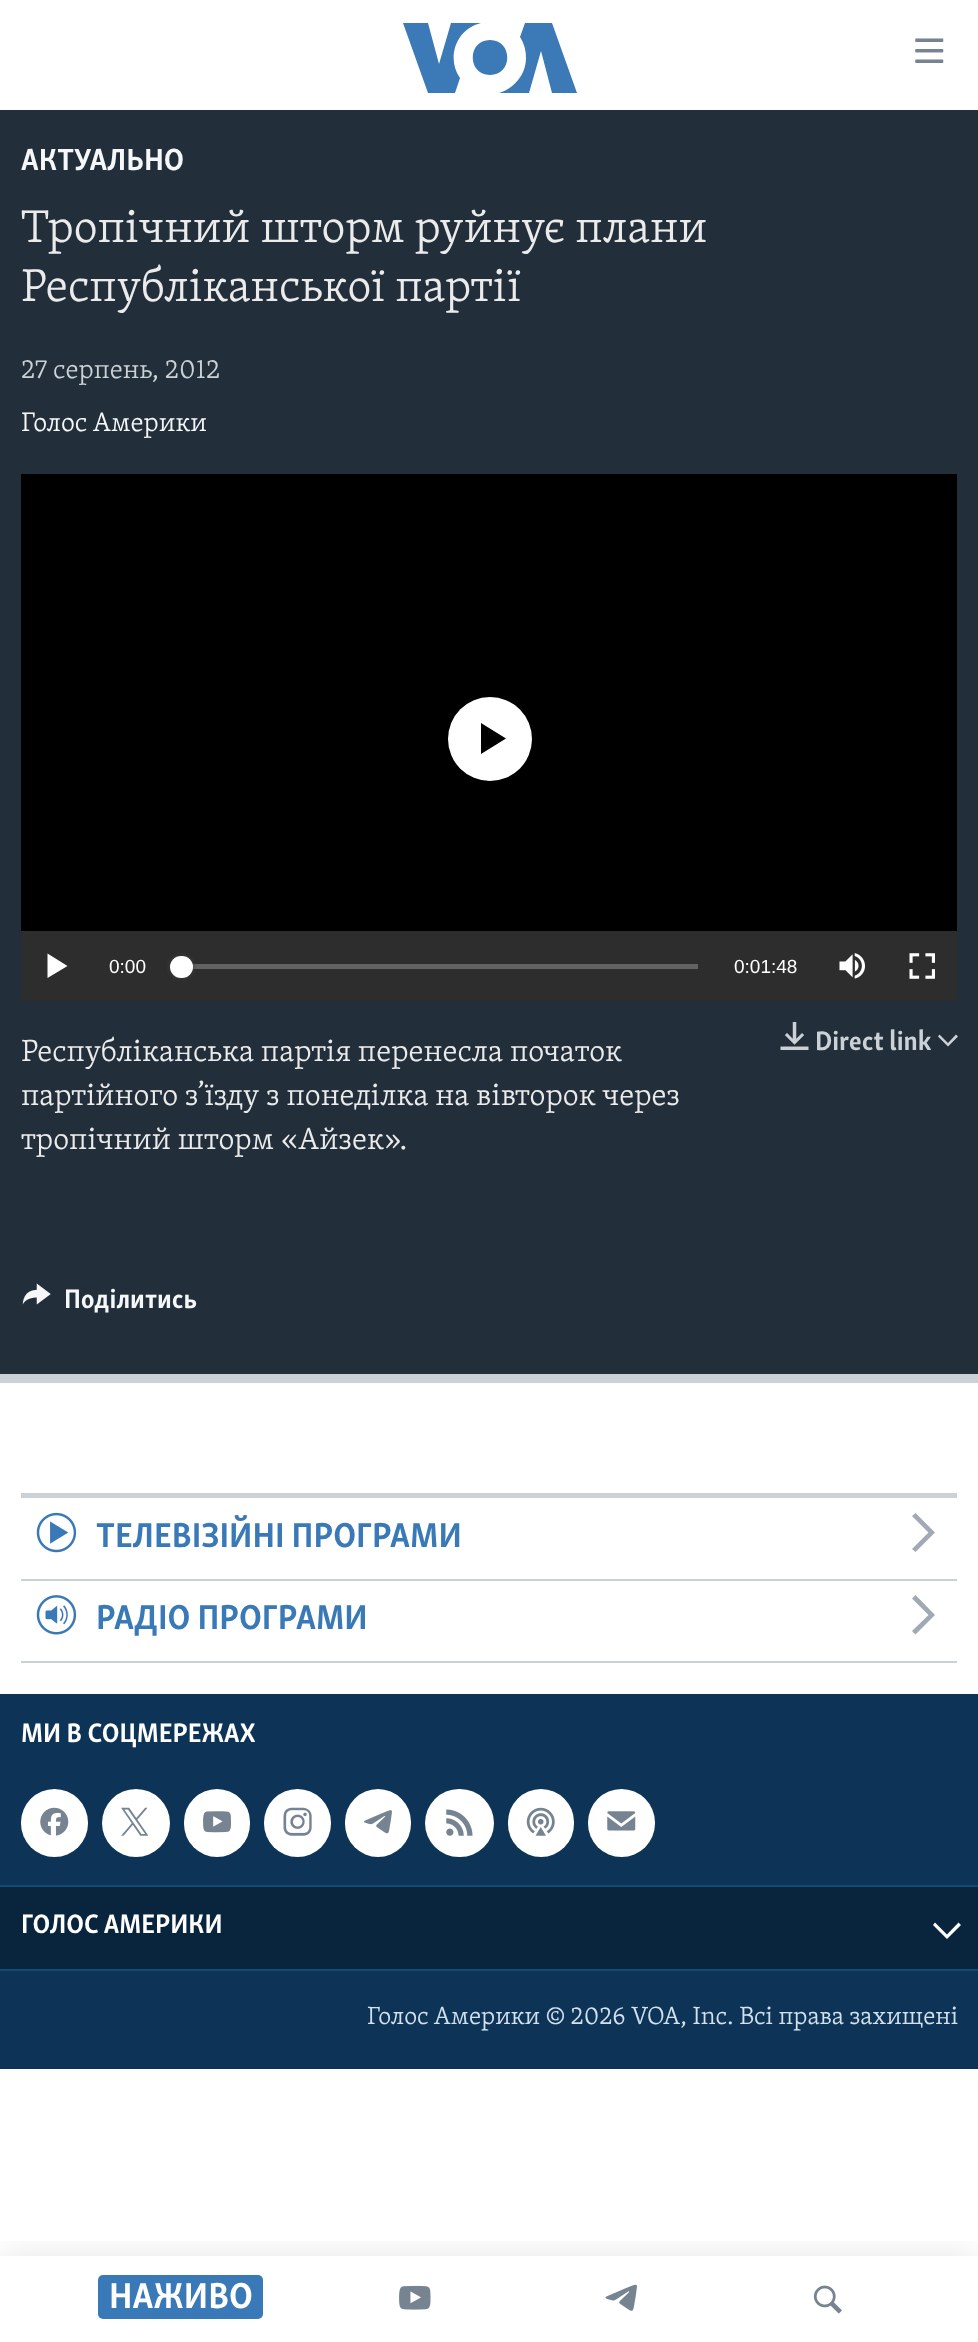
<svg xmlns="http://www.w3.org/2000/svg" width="978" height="2342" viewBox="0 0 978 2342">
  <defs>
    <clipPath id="clip1"><rect x="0" y="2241" width="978" height="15"/></clipPath>
  </defs>
  <rect width="100%" height="100%" fill="rgb(255,255,255)"/>
  <rect x="0" y="110" width="978" height="1264" fill="rgb(34,47,58)"/>
  <rect x="0" y="1374" width="978" height="9" fill="rgb(203,209,214)"/>
  <text x="21" y="170" font-family="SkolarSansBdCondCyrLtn" font-size="31.5" font-weight="bold" fill="rgb(246,247,248)">АКТУАЛЬНО</text>
  <g font-family="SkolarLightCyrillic" font-size="47.25" font-weight="300" fill="rgb(235,235,235)">
    <text>
      <tspan x="21" y="242">Тропічний шторм руйнує плани</tspan>
      <tspan x="21" y="301">Республіканської партії</tspan>
    </text>
  </g>
  <text x="21" y="378" font-family="SkolarLightCyrillic" font-size="27.5" font-weight="300" fill="rgb(203,209,214)">27 серпень, 2012</text>
  <text x="21" y="431" font-family="SkolarLightCyrillic" font-size="27.5" font-weight="300" fill="rgb(246,247,248)">Голос Америки</text>
  <rect x="21" y="474" width="936" height="457" fill="rgb(0,0,0)"/>
  <circle cx="490" cy="739" r="42" fill="rgb(255,255,255)"/>
  <path d="M481 754L506 738.5L481 723Z" fill="rgb(0,0,0)"/>
  <rect x="21" y="931" width="936" height="70" fill="rgb(45,45,45)"/>
  <path d="M47.5 978L67.5 966L47.5 953.5Z" fill="rgb(255,255,255)"/>
  <text x="109" y="973" font-family="Liberation Sans" font-size="19" fill="rgb(255,255,255)">0:00</text>
  <rect x="192" y="964" width="506" height="5" fill="rgb(98,98,98)"/>
  <rect x="170" y="956" width="23" height="22" rx="11" fill="rgb(65,65,68)" filter="blur(2.5px)"/>
  <rect x="170" y="956" width="23" height="22" rx="11" fill="rgb(255,255,255)"/>
  <text x="734" y="973" font-family="Liberation Sans" font-size="19" fill="rgb(255,255,255)">0:01:48</text>
  <image x="839" y="953" width="26" height="26" href="pic1.png"/>
  <image x="909" y="953" width="26" height="26" href="pic2.png"/>
  <g font-family="SkolarLightCyrillic" font-size="31.5" font-weight="300" fill="rgb(235,235,235)">
    <text>
      <tspan x="21" y="1061">Республіканська партія перенесла початок</tspan>
      <tspan x="21" y="1105">партійного з’їзду з понеділка на вівторок через</tspan>
      <tspan x="21" y="1149">тропічний шторм «Айзек».</tspan>
    </text>
  </g>
  <image x="780" y="1022" width="29" height="28" href="pic3.png"/>
  <text x="815" y="1050" font-family="SkolarSansBdCondCyrLtn" font-size="27.5" font-weight="bold" fill="rgb(203,209,214)">Direct link</text>
  <path d="M938 1036.5L948 1046.5L958 1036.5L956 1034.5L948 1043L939.5 1034.5Z" fill="rgb(203,209,214)"/>
  <image x="22" y="1283" width="29" height="22" href="pic4.png"/>
  <text x="64" y="1308" font-family="SkolarSansBdCondCyrLtn" font-size="27.5" font-weight="bold" fill="rgb(246,247,248)">Поділитись</text>
  <rect x="21" y="1493" width="936" height="5" fill="rgb(203,209,214)"/>
  <rect x="21" y="1579" width="936" height="2" fill="rgb(203,209,214)"/>
  <image x="36" y="1512" width="41" height="41" href="pic5.png"/>
  <text x="96" y="1547" font-family="SkolarSansBdCondCyrLtn" font-size="35.5" font-weight="bold" fill="rgb(58,121,183)">ТЕЛЕВІЗІЙНІ ПРОГРАМИ</text>
  <path d="M915.5 1552L935 1532.5L915.5 1513L912 1516L928.5 1532.5L912 1549Z" fill="rgb(161,170,180)"/>
  <rect x="21" y="1661" width="936" height="2" fill="rgb(203,209,214)"/>
  <image x="36" y="1595" width="41" height="40" href="pic6.png"/>
  <text x="96" y="1629" font-family="SkolarSansBdCondCyrLtn" font-size="35.5" font-weight="bold" fill="rgb(58,121,183)">РАДІО ПРОГРАМИ</text>
  <path d="M915.5 1634.5L935 1615L915.5 1595L912 1598.5L928.5 1615L912 1631Z" fill="rgb(161,170,180)"/>
  <rect x="0" y="1694" width="978" height="375" fill="rgb(13,52,86)"/>
  <rect x="0" y="1969" width="978" height="2" fill="rgb(19,73,118)"/>
  <text x="21" y="1742" font-family="SkolarSansBdCondCyrLtn" font-size="27.5" font-weight="bold" fill="rgb(255,255,255)">МИ В СОЦМЕРЕЖАХ</text>
  <rect x="21" y="1789" width="67" height="68" rx="33.5" fill="rgb(255,255,255)"/>
  <image x="40" y="1807" width="29" height="29" href="pic7.png"/>
  <circle cx="136" cy="1823" r="34" fill="rgb(255,255,255)"/>
  <image x="121" y="1807" width="28" height="29" href="pic8.png"/>
  <rect x="184" y="1789" width="66" height="68" rx="33" fill="rgb(255,255,255)"/>
  <image x="203" y="1811" width="28" height="22" href="pic9.png"/>
  <rect x="264" y="1789" width="67" height="68" rx="33.5" fill="rgb(255,255,255)"/>
  <image x="283" y="1807" width="29" height="29" href="pic10.png"/>
  <rect x="345" y="1789" width="66" height="68" rx="33" fill="rgb(255,255,255)"/>
  <image x="364" y="1810" width="28" height="24" href="pic11.png"/>
  <rect x="425" y="1789" width="69" height="68" rx="34" fill="rgb(255,255,255)"/>
  <image x="446" y="1809" width="27" height="27" href="pic12.png"/>
  <rect x="508" y="1789" width="66" height="68" rx="33" fill="rgb(255,255,255)"/>
  <image x="526" y="1807" width="29" height="29" href="pic13.png"/>
  <rect x="588" y="1789" width="67" height="68" rx="33.5" fill="rgb(255,255,255)"/>
  <image x="607" y="1811" width="29" height="20" href="pic14.png"/>
  <rect x="0" y="1885" width="978" height="2" fill="rgb(19,73,118)"/>
  <rect x="0" y="1887" width="978" height="82" fill="rgb(9,36,61)"/>
  <text x="21" y="1933" font-family="SkolarSansBdCondCyrLtn" font-size="27.5" font-weight="bold" fill="rgb(255,255,255)">ГОЛОС АМЕРИКИ</text>
  <path d="M933 1925L947 1939L961 1925L958.5 1922.5L947 1934.5L935 1922.5Z" fill="rgb(255,255,255)"/>
  <text x="367" y="2024" font-family="SkolarLightCyrillic" font-size="25.6" font-weight="300" fill="rgb(209,225,238)">Голос Америки © 2026 VOA, Inc. Всі права захищені</text>
  <path d="M460 78L455 93H428L403 23H428L439 64L451 23H481C456 29 446 58 460 78ZM490 40C467 40 467 75 490 75C513 75 513 40 490 40ZM526 58C526 74 515 88 499 93H529L541 51L552 93H577L552 23H525L520 37C524 43 526 50 526 58Z" fill="rgb(59,121,183)"/>
  <image x="915" y="38" width="29" height="25" href="pic15.png"/>
  <g clip-path="url(#clip1)">
    <rect x="0" y="2256" width="978" height="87" fill="rgba(0,0,0,0.1)" filter="blur(17.5px)"/>
  </g>
  <rect x="98" y="2275" width="165" height="44" rx="5" fill="rgb(58,121,183)"/>
  <text x="109" y="2308" font-family="SkolarSansBdCondCyrLtn" font-size="37" font-weight="bold" fill="rgb(255,255,255)">НАЖИВО</text>
  <image x="399" y="2285" width="32" height="25" href="pic16.png"/>
  <image x="605" y="2284" width="32" height="27" href="pic17.png"/>
  <image x="813" y="2285" width="29" height="29" href="pic18.png"/>
</svg>
